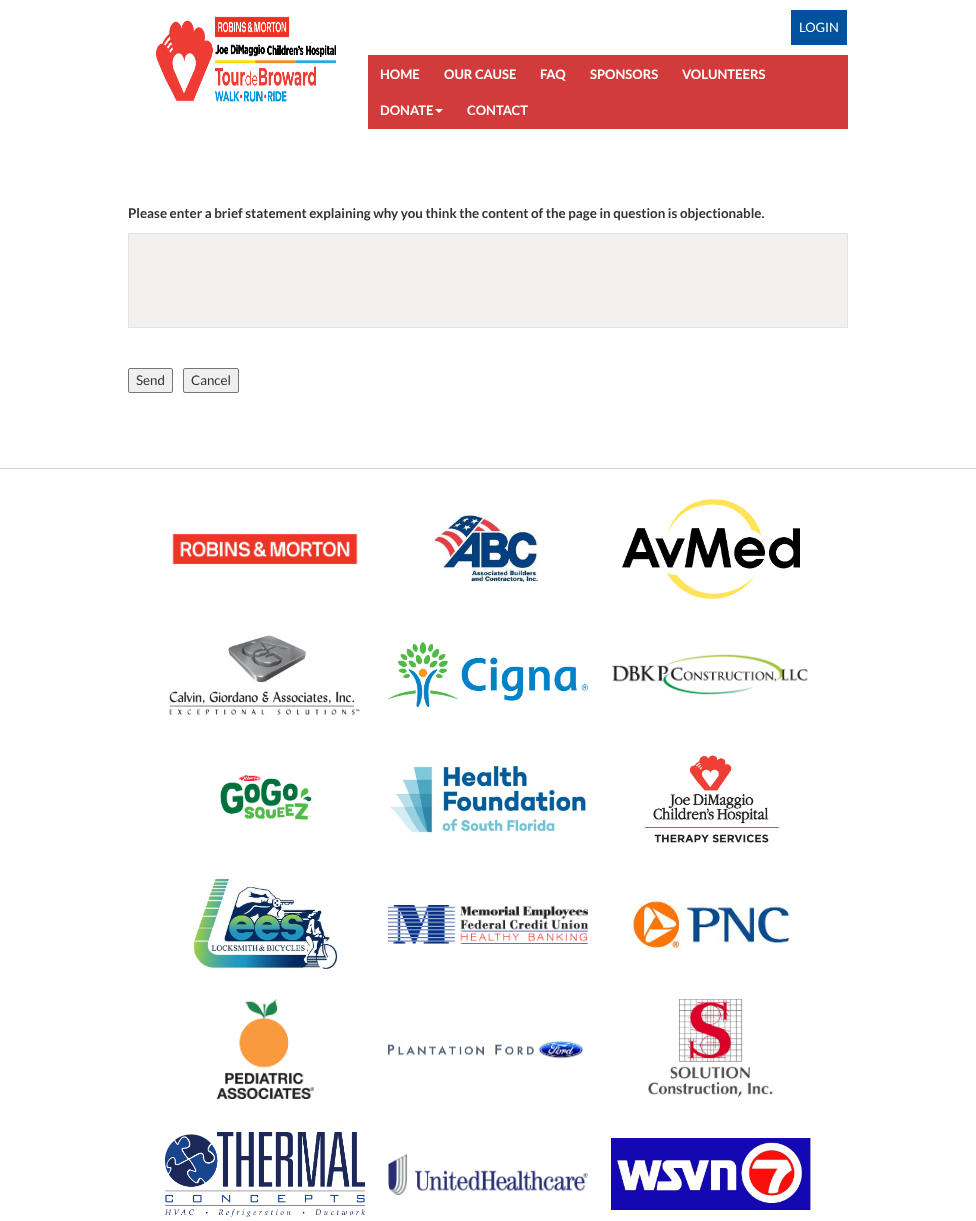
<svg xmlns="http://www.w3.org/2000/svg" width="976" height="1221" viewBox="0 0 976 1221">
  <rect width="100%" height="100%" fill="rgb(255,255,255)"/>
  <image x="156" y="16" width="180" height="86" href="pic1.png"/>
  <rect x="791" y="10" width="56" height="35" fill="rgb(0,82,156)"/>
  <text x="799" y="32" font-family="Lato" font-size="13" fill="rgb(255,255,255)">LOGIN</text>
  <rect x="368" y="55" width="480" height="74" fill="rgb(210,59,59)"/>
  <g font-family="Lato" font-size="13" font-weight="bold" fill="rgb(255,255,255)">
    <text x="380" y="79">HOME</text>
    <text x="444" y="79">OUR CAUSE</text>
    <text x="540" y="79">FAQ</text>
    <text x="590" y="79">SPONSORS</text>
    <text x="682" y="79">VOLUNTEERS</text>
    <text x="380" y="115">DONATE</text>
  </g>
  <path d="M435 109H443L439 113Z" fill="rgb(255,255,255)"/>
  <text x="467" y="115" font-family="Lato" font-size="13" font-weight="bold" fill="rgb(255,255,255)">CONTACT</text>
  <text x="128" y="218" font-family="Lato" font-size="13.35" font-weight="bold" fill="rgb(51,51,51)">Please enter a brief statement explaining why you think the content of the page in question is objectionable.</text>
  <rect x="128.5" y="233.5" width="719" height="94" fill="rgb(242,241,240)" stroke="rgb(226,226,226)"/>
  <rect x="128.5" y="368.5" width="44" height="24" rx="1.5" fill="rgb(239,239,239)" stroke="rgb(118,118,118)"/>
  <text x="136" y="385" font-family="Lato" font-size="13.35" fill="rgb(51,51,51)">Send</text>
  <rect x="183.5" y="368.5" width="55" height="24" rx="1.5" fill="rgb(239,239,239)" stroke="rgb(118,118,118)"/>
  <text x="191" y="385" font-family="Lato" font-size="13.35" fill="rgb(51,51,51)">Cancel</text>
  <rect x="0" y="468" width="976" height="1" fill="rgb(211,210,209)"/>
  <image x="172" y="533" width="186" height="32" href="pic2.png"/>
  <image x="432" y="514" width="107" height="68" href="pic3.png"/>
  <image x="622" y="499" width="178" height="100" href="pic4.png"/>
  <image x="169" y="635" width="191" height="80" href="pic5.png"/>
  <image x="388" y="642" width="200" height="65" href="pic6.png"/>
  <image x="612" y="654" width="196" height="41" href="pic7.png"/>
  <image x="220" y="775" width="92" height="45" href="pic8.png"/>
  <image x="390" y="764" width="196" height="70" href="pic9.png"/>
  <image x="645" y="755" width="134" height="88" href="pic10.png"/>
  <image x="193" y="878" width="148" height="94" href="pic11.png"/>
  <image x="388" y="905" width="200" height="39" href="pic12.png"/>
  <image x="632" y="900" width="158" height="51" href="pic13.png"/>
  <image x="217" y="999" width="97" height="100" href="pic14.png"/>
  <image x="388" y="1041" width="195" height="18" href="pic15.png"/>
  <image x="648" y="999" width="125" height="99" href="pic16.png"/>
  <image x="165" y="1132" width="200" height="85" href="pic17.png"/>
  <image x="388" y="1154" width="200" height="41" href="pic18.png"/>
  <image x="611" y="1138" width="200" height="72" href="pic19.png"/>
</svg>
